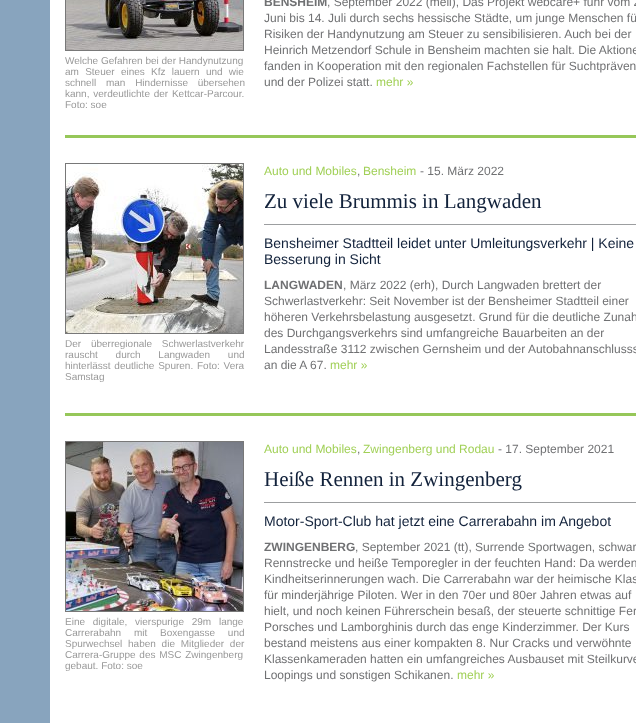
<svg xmlns="http://www.w3.org/2000/svg" width="636" height="723" viewBox="0 0 636 723">
  <rect width="100%" height="100%" fill="rgb(136,164,190)"/>
  <rect x="50" y="0" width="586" height="723" fill="rgb(255,255,255)"/>
  <rect x="65" y="135" width="571" height="3" fill="rgb(150,199,89)"/>
  <rect x="65.5" y="-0.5" width="178" height="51" fill="none" stroke="rgb(120,120,120)"/>
  <image x="66" y="0" width="177" height="50" href="pic1.png"/>
  <g font-family="Liberation Sans" font-size="10" fill="rgb(153,153,153)">
    <text>
      <tspan x="65" y="64">Welche Gefahren bei der Handynutzung</tspan>
      <tspan x="65" y="75" word-spacing="3.5">am Steuer eines Kfz lauern und wie</tspan>
      <tspan x="65" y="86" word-spacing="7">schnell man Hindernisse übersehen</tspan>
      <tspan x="65" y="97" word-spacing="1">kann, verdeutlichte der Kettcar-Parcour.</tspan>
      <tspan x="65" y="108">Foto: soe</tspan>
    </text>
  </g>
  <text x="264" y="6" font-family="Liberation Sans" font-size="12" font-weight="bold" fill="rgb(112,113,115)">BENSHEIM</text>
  <g font-family="Liberation Sans" font-size="12" fill="rgb(112,113,115)">
    <text x="327" y="6">, September 2022 (meli), Das Projekt webcare+ fuhr vom 2</text>
    <text>
      <tspan x="264" y="22">Juni bis 14. Juli durch sechs hessische Städte, um junge Menschen fü</tspan>
      <tspan x="264" y="38">Risiken der Handynutzung am Steuer zu sensibilisieren. Auch bei der</tspan>
      <tspan x="264" y="54">Heinrich Metzendorf Schule in Bensheim machten sie halt. Die Aktione</tspan>
      <tspan x="264" y="70">fanden in Kooperation mit den regionalen Fachstellen für Suchtpräven</tspan>
      <tspan x="264" y="86">und der Polizei statt.</tspan>
    </text>
  </g>
  <text x="376" y="86" font-family="Liberation Sans" font-size="12" fill="rgb(161,208,87)">mehr »</text>
  <rect x="65" y="413" width="571" height="3" fill="rgb(150,199,89)"/>
  <rect x="65.5" y="163.5" width="178" height="170" fill="none" stroke="rgb(120,120,120)"/>
  <image x="66" y="164" width="177" height="169" href="pic2.png"/>
  <g font-family="Liberation Sans" font-size="10" fill="rgb(153,153,153)">
    <text>
      <tspan x="65" y="347" word-spacing="7">Der überregionale Schwerlastverkehr</tspan>
      <tspan x="65" y="358" word-spacing="15">rauscht durch Langwaden und</tspan>
      <tspan x="65" y="369" word-spacing="1">hinterlässt deutliche Spuren. Foto: Vera</tspan>
      <tspan x="65" y="380">Samstag</tspan>
    </text>
  </g>
  <text x="264" y="175" font-family="Liberation Sans" font-size="12" fill="rgb(161,208,87)">Auto und Mobiles</text>
  <text x="357" y="175" font-family="Liberation Sans" font-size="12" fill="rgb(112,113,115)">,</text>
  <text x="363" y="175" font-family="Liberation Sans" font-size="12" fill="rgb(161,208,87)">Bensheim</text>
  <text x="420" y="175" font-family="Liberation Sans" font-size="12" fill="rgb(112,113,115)">- 15. März 2022</text>
  <rect x="264" y="224" width="372" height="1" fill="rgb(156,158,160)"/>
  <text x="264" y="208" font-family="Liberation Serif" font-size="21" fill="rgb(18,34,59)">Zu viele Brummis in Langwaden</text>
  <g font-family="Liberation Sans" font-size="14" fill="rgb(18,34,59)">
    <text>
      <tspan x="264" y="248">Bensheimer Stadtteil leidet unter Umleitungsverkehr | Keine</tspan>
      <tspan x="264" y="264">Besserung in Sicht</tspan>
    </text>
  </g>
  <text x="264" y="289" font-family="Liberation Sans" font-size="12" font-weight="bold" fill="rgb(112,113,115)">LANGWADEN</text>
  <g font-family="Liberation Sans" font-size="12" fill="rgb(112,113,115)">
    <text x="343" y="289">, März 2022 (erh), Durch Langwaden brettert der</text>
    <text>
      <tspan x="264" y="305">Schwerlastverkehr: Seit November ist der Bensheimer Stadtteil einer</tspan>
      <tspan x="264" y="321">höheren Verkehrsbelastung ausgesetzt. Grund für die deutliche Zunah</tspan>
      <tspan x="264" y="337">des Durchgangsverkehrs sind umfangreiche Bauarbeiten an der</tspan>
      <tspan x="264" y="353">Landesstraße 3112 zwischen Gernsheim und der Autobahnanschlusss</tspan>
      <tspan x="264" y="369">an die A 67.</tspan>
    </text>
  </g>
  <text x="330" y="369" font-family="Liberation Sans" font-size="12" fill="rgb(161,208,87)">mehr »</text>
  <rect x="65.5" y="441.5" width="178" height="170" fill="none" stroke="rgb(120,120,120)"/>
  <image x="66" y="442" width="177" height="169" href="pic3.png"/>
  <g font-family="Liberation Sans" font-size="10" fill="rgb(153,153,153)">
    <text>
      <tspan x="65" y="625" word-spacing="5">Eine digitale, vierspurige 29m lange</tspan>
      <tspan x="65" y="636" word-spacing="10">Carrerabahn mit Boxengasse und</tspan>
      <tspan x="65" y="647" word-spacing="3">Spurwechsel haben die Mitglieder der</tspan>
      <tspan x="65" y="658" word-spacing="1">Carrera-Gruppe des MSC Zwingenberg</tspan>
      <tspan x="65" y="669">gebaut. Foto: soe</tspan>
    </text>
  </g>
  <text x="264" y="453" font-family="Liberation Sans" font-size="12" fill="rgb(161,208,87)">Auto und Mobiles</text>
  <text x="357" y="453" font-family="Liberation Sans" font-size="12" fill="rgb(112,113,115)">,</text>
  <text x="363" y="453" font-family="Liberation Sans" font-size="12" fill="rgb(161,208,87)">Zwingenberg und Rodau</text>
  <text x="498" y="453" font-family="Liberation Sans" font-size="12" fill="rgb(112,113,115)">- 17. September 2021</text>
  <rect x="264" y="502" width="372" height="1" fill="rgb(156,158,160)"/>
  <text x="264" y="486" font-family="Liberation Serif" font-size="21" fill="rgb(18,34,59)">Heiße Rennen in Zwingenberg</text>
  <text x="264" y="526" font-family="Liberation Sans" font-size="14" fill="rgb(18,34,59)">Motor-Sport-Club hat jetzt eine Carrerabahn im Angebot</text>
  <text x="264" y="551" font-family="Liberation Sans" font-size="12" font-weight="bold" fill="rgb(112,113,115)">ZWINGENBERG</text>
  <g font-family="Liberation Sans" font-size="12" fill="rgb(112,113,115)">
    <text x="355" y="551">, September 2021 (tt), Surrende Sportwagen, schwar</text>
    <text>
      <tspan x="264" y="567">Rennstrecke und heiße Temporegler in der feuchten Hand: Da werden</tspan>
      <tspan x="264" y="583">Kindheitserinnerungen wach. Die Carrerabahn war der heimische Klas</tspan>
      <tspan x="264" y="599">für minderjährige Piloten. Wer in den 70er und 80er Jahren etwas auf</tspan>
      <tspan x="264" y="615">hielt, und noch keinen Führerschein besaß, der steuerte schnittige Fer</tspan>
      <tspan x="264" y="631">Porsches und Lamborghinis durch das enge Kinderzimmer. Der Kurs</tspan>
      <tspan x="264" y="647">bestand meistens aus einer kompakten 8. Nur Cracks und verwöhnte</tspan>
      <tspan x="264" y="663">Klassenkameraden hatten ein umfangreiches Ausbauset mit Steilkurve</tspan>
      <tspan x="264" y="679">Loopings und sonstigen Schikanen.</tspan>
    </text>
  </g>
  <text x="457" y="679" font-family="Liberation Sans" font-size="12" fill="rgb(161,208,87)">mehr »</text>
</svg>
